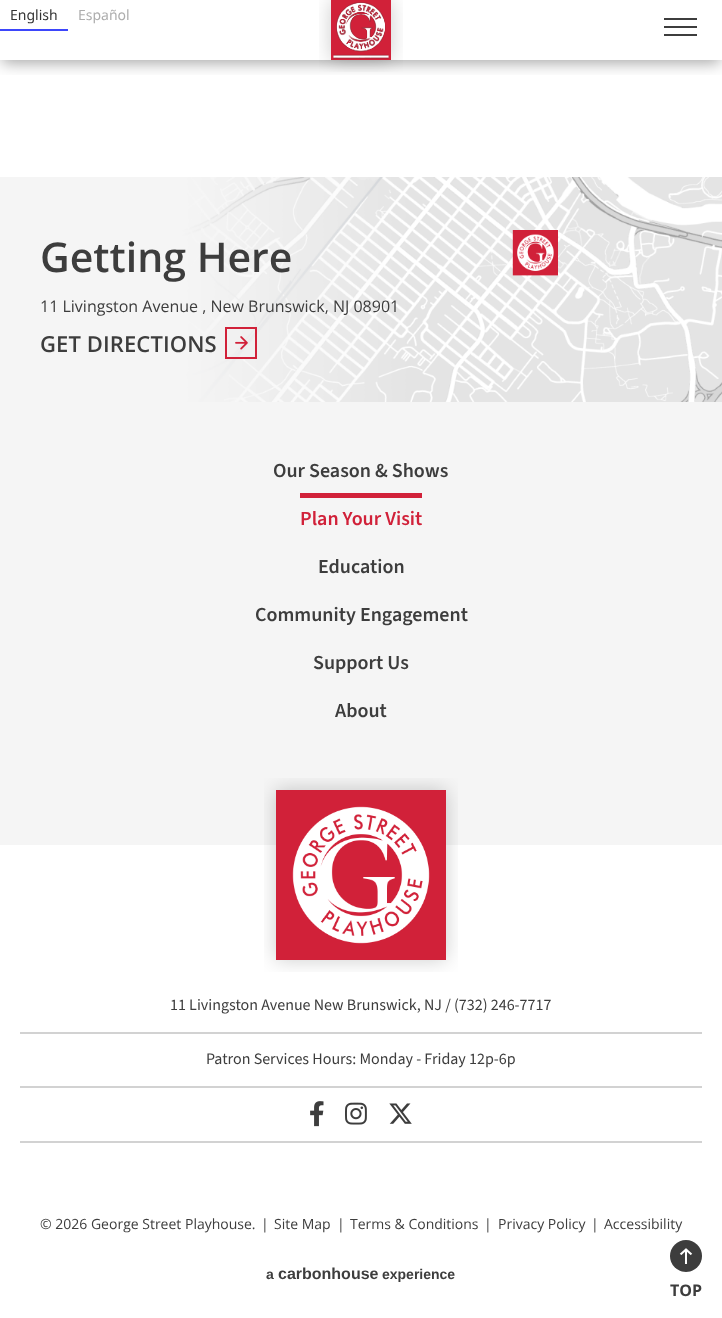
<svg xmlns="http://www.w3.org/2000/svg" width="722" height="1318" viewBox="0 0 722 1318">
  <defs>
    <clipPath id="clip1"><rect x="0" y="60" width="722" height="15"/></clipPath>
  </defs>
  <rect width="100%" height="100%" fill="rgb(255,255,255)"/>
  <g clip-path="url(#clip1)">
    <rect x="2" y="7" width="718" height="56" fill="rgba(0,0,0,0.35)" filter="blur(7.5px)"/>
  </g>
  <text x="10" y="20" font-family="Noto Sans" font-size="14" fill="rgb(51,51,51)">English</text>
  <rect x="0" y="29" width="68" height="2" fill="rgb(61,70,251)"/>
  <text x="78" y="20" font-family="Noto Sans" font-size="14" fill="rgb(173,173,173)">Español</text>
  <image x="319" y="0" width="84" height="72" href="pic1.png"/>
  <rect x="664" y="18" width="33" height="2" fill="rgb(61,61,61)"/>
  <rect x="664" y="26" width="33" height="2" fill="rgb(61,61,61)"/>
  <rect x="664" y="34" width="33" height="2" fill="rgb(61,61,61)"/>
  <image x="0" y="177" width="722" height="225" href="pic2.png"/>
  <text x="40" y="272" font-family="Open Sans" font-size="41" font-weight="600" fill="rgb(61,61,61)">Getting Here</text>
  <text x="40" y="312" font-family="Open Sans" font-size="16" fill="rgb(61,61,61)">11 Livingston Avenue , New Brunswick, NJ 08901</text>
  <text x="40" y="352" font-family="Open Sans" font-size="22" font-weight="600" letter-spacing="0.1" fill="rgb(61,61,61)">GET DIRECTIONS</text>
  <image x="235" y="336" width="13" height="14" href="pic3.png"/>
  <rect x="226" y="328" width="30" height="30" fill="none" stroke="rgb(209,33,57)" stroke-width="2"/>
  <rect x="0" y="402" width="722" height="443" fill="rgb(245,245,245)"/>
  <text x="273" y="477" font-family="'Source Sans 3'" font-size="20" font-weight="600" fill="rgb(61,61,61)">Our Season &amp; Shows</text>
  <rect x="300" y="493" width="122" height="5" fill="rgb(209,33,57)"/>
  <text x="300" y="525" font-family="'Source Sans 3'" font-size="20" font-weight="600" fill="rgb(209,33,57)">Plan Your Visit</text>
  <g font-family="'Source Sans 3'" font-size="20" font-weight="600" fill="rgb(61,61,61)">
    <text x="318" y="573">Education</text>
    <text x="255" y="621">Community Engagement</text>
    <text x="313" y="669">Support Us</text>
    <text x="335" y="717">About</text>
  </g>
  <image x="264" y="778" width="194" height="194" href="pic4.png"/>
  <rect x="20" y="1032" width="682" height="2" fill="rgb(210,210,210)"/>
  <text x="170" y="1010" font-family="'Source Sans 3'" font-size="16" fill="rgb(61,61,61)">11 Livingston Avenue New Brunswick, NJ / (732) 246-7717</text>
  <rect x="20" y="1086" width="682" height="2" fill="rgb(210,210,210)"/>
  <text x="206" y="1064" font-family="'Source Sans 3'" font-size="16" fill="rgb(61,61,61)">Patron Services Hours: Monday - Friday 12p-6p</text>
  <rect x="20" y="1141" width="682" height="2" fill="rgb(210,210,210)"/>
  <image x="310" y="1101" width="14" height="26" href="pic5.png"/>
  <image x="345" y="1102" width="22" height="23" href="pic6.png"/>
  <image x="389" y="1103" width="23" height="21" href="pic7.png"/>
  <g font-family="Open Sans" font-size="14" fill="rgb(61,61,61)">
    <text x="40" y="1229">© 2026 George Street Playhouse.</text>
    <text x="261" y="1229">|</text>
    <text x="274" y="1229">Site Map</text>
    <text x="337" y="1229">|</text>
    <text x="350" y="1229">Terms &amp; Conditions</text>
    <text x="484" y="1229">|</text>
    <text x="498" y="1229">Privacy Policy</text>
    <text x="591" y="1229">|</text>
    <text x="604" y="1229">Accessibility</text>
  </g>
  <text x="266" y="1279" font-family="Liberation Sans" font-size="14" font-weight="bold" fill="rgb(61,61,61)">a</text>
  <text x="278" y="1279" font-family="Liberation Sans" font-size="16" font-weight="bold" fill="rgb(61,61,61)">carbonhouse</text>
  <text x="382" y="1279" font-family="Liberation Sans" font-size="14" font-weight="bold" fill="rgb(61,61,61)">experience</text>
  <circle cx="686" cy="1256" r="16" fill="rgb(61,61,61)"/>
  <image x="679" y="1248" width="14" height="16" href="pic8.png"/>
  <text x="670" y="1296" font-family="Open Sans" font-size="16" font-weight="bold" fill="rgb(61,61,61)">TOP</text>
</svg>
